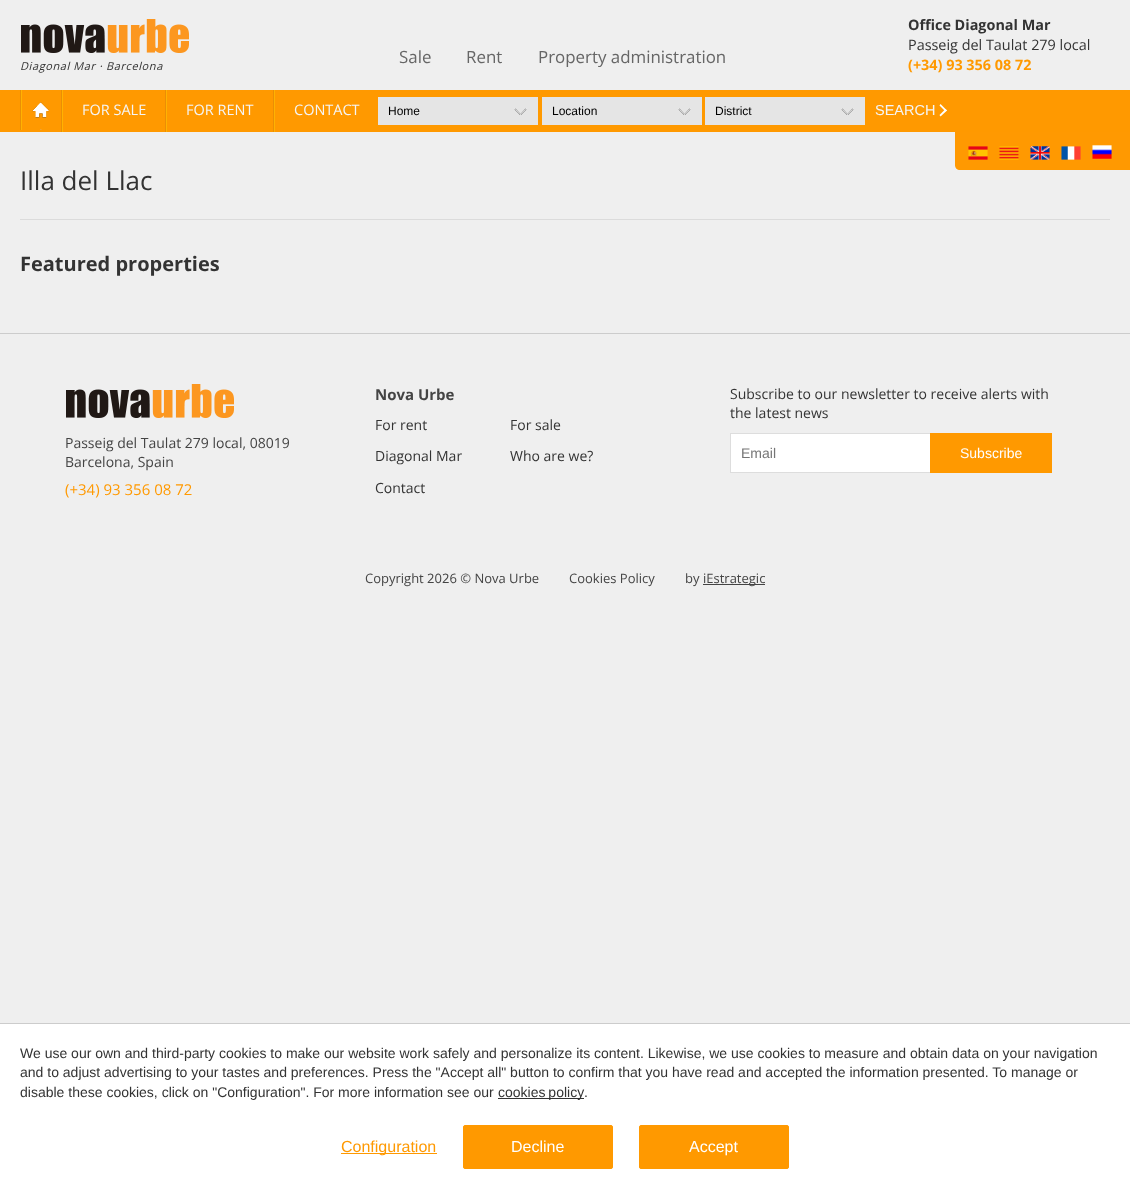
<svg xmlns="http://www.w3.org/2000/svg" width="1130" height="1193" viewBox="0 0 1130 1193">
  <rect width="100%" height="100%" fill="rgb(239,239,239)"/>
  <image x="21" y="19" width="168" height="34" href="pic1.png"/>
  <text x="20" y="70" font-family="Open Sans" font-size="11" font-style="italic" letter-spacing="0.6" fill="rgb(51,51,51)">Diagonal Mar · Barcelona</text>
  <g font-family="Open Sans" font-size="16.9" fill="rgb(102,102,102)">
    <text x="399" y="63">Sale</text>
    <text x="466" y="63">Rent</text>
    <text x="538" y="63">Property administration</text>
  </g>
  <text x="908" y="30" font-family="Open Sans" font-size="14.4" font-weight="bold" fill="rgb(51,51,51)">Office Diagonal Mar</text>
  <text x="908" y="50" font-family="Open Sans" font-size="14.4" fill="rgb(51,51,51)">Passeig del Taulat 279 local</text>
  <text x="908" y="70" font-family="Open Sans" font-size="14.4" font-weight="bold" fill="rgb(255,153,0)">(+34) 93 356 08 72</text>
  <rect x="0" y="90" width="1130" height="42" fill="rgb(255,153,0)"/>
  <rect x="21" y="90" width="1" height="40" fill="rgb(255,178,2)"/>
  <rect x="20" y="90" width="1" height="40" fill="rgb(234,142,5)"/>
  <image x="32" y="102" width="17" height="28" href="pic2.png"/>
  <rect x="62" y="90" width="1" height="42" fill="rgb(255,178,2)"/>
  <rect x="61" y="90" width="1" height="42" fill="rgb(234,142,5)"/>
  <text x="82" y="115" font-family="Open Sans" font-size="14.5" fill="rgb(245,245,245)">FOR SALE</text>
  <rect x="166" y="90" width="1" height="42" fill="rgb(255,178,2)"/>
  <rect x="165" y="90" width="1" height="42" fill="rgb(234,142,5)"/>
  <text x="186" y="115" font-family="Open Sans" font-size="14.5" fill="rgb(245,245,245)">FOR RENT</text>
  <rect x="274" y="90" width="1" height="42" fill="rgb(255,178,2)"/>
  <rect x="273" y="90" width="1" height="42" fill="rgb(234,142,5)"/>
  <text x="294" y="115" font-family="Open Sans" font-size="14.5" fill="rgb(245,245,245)">CONTACT</text>
  <rect x="378" y="97" width="160" height="28" fill="rgb(229,229,229)"/>
  <image x="514" y="108" width="13" height="7" href="pic3.png"/>
  <text x="388" y="115" font-family="Liberation Sans" font-size="12" fill="rgb(0,0,0)">Home</text>
  <rect x="542" y="97" width="160" height="28" fill="rgb(229,229,229)"/>
  <image x="678" y="108" width="13" height="7" href="pic3.png"/>
  <text x="552" y="115" font-family="Liberation Sans" font-size="12" fill="rgb(0,0,0)">Location</text>
  <rect x="705" y="97" width="160" height="28" fill="rgb(229,229,229)"/>
  <image x="841" y="108" width="13" height="7" href="pic3.png"/>
  <text x="715" y="115" font-family="Liberation Sans" font-size="12" fill="rgb(0,0,0)">District</text>
  <text x="875" y="115" font-family="Liberation Sans" font-size="14.5" fill="rgb(245,245,245)">SEARCH</text>
  <path d="M940.5 104L947 110.5L945.5 111.5L939.5 105.5Z" fill="rgb(255,255,255)"/>
  <path d="M945.5 109L947 110.5L940.5 116.5L939.5 115Z" fill="rgb(255,255,255)"/>
  <path d="M955 132H1130V170H960C957 170 955 168 955 165Z" fill="rgb(255,153,1)"/>
  <image x="968" y="146" width="20" height="14" href="pic4.png"/>
  <image x="999" y="146" width="20" height="14" href="pic5.png"/>
  <image x="1030" y="146" width="20" height="14" href="pic6.png"/>
  <image x="1061" y="146" width="20" height="14" href="pic7.png"/>
  <image x="1092" y="145" width="20" height="14" href="pic8.png"/>
  <rect x="20" y="219" width="1090" height="1" fill="rgb(219,219,219)"/>
  <text x="20" y="190" font-family="Open Sans" font-size="26" fill="rgb(51,51,51)">Illa del Llac</text>
  <text x="20" y="271" font-family="Open Sans" font-size="20" font-weight="bold" fill="rgb(51,51,51)">Featured properties</text>
  <rect x="0" y="333" width="1130" height="1" fill="rgb(204,204,204)"/>
  <text x="375" y="400" font-family="Open Sans" font-size="15" font-weight="bold" fill="rgb(68,68,68)">Nova Urbe</text>
  <g font-family="Open Sans" font-size="14" fill="rgb(51,51,51)">
    <text x="375" y="430">For rent</text>
    <text x="510" y="430">For sale</text>
    <text x="375" y="461">Diagonal Mar</text>
    <text x="510" y="461">Who are we?</text>
    <text x="375" y="493">Contact</text>
    <text>
      <tspan x="730" y="399">Subscribe to our newsletter to receive alerts with</tspan>
      <tspan x="730" y="418">the latest news</tspan>
    </text>
  </g>
  <rect x="731" y="434" width="199" height="38" fill="rgb(255,255,255)"/>
  <rect x="730" y="433" width="200" height="1" fill="rgb(221,221,221)"/>
  <rect x="730" y="472" width="200" height="1" fill="rgb(221,221,221)"/>
  <rect x="730" y="433" width="1" height="40" fill="rgb(221,221,221)"/>
  <text x="741" y="458" font-family="Liberation Sans" font-size="14" fill="rgb(117,117,117)">Email</text>
  <rect x="930" y="433" width="122" height="40" fill="rgb(255,153,0)"/>
  <text x="960" y="458" font-family="Liberation Sans" font-size="14" fill="rgb(255,255,255)">Subscribe</text>
  <image x="66" y="384" width="168" height="34" href="pic1.png"/>
  <g font-family="Open Sans" font-size="14" fill="rgb(68,68,68)">
    <text>
      <tspan x="65" y="448">Passeig del Taulat 279 local, 08019</tspan>
      <tspan x="65" y="467">Barcelona, Spain</tspan>
    </text>
  </g>
  <text x="65" y="495" font-family="Open Sans" font-size="15" fill="rgb(255,153,0)">(+34) 93 356 08 72</text>
  <g font-family="Open Sans" font-size="13" fill="rgb(68,68,68)">
    <text x="365" y="583">Copyright 2026 © Nova Urbe</text>
    <text x="569" y="583">Cookies Policy</text>
    <text x="685" y="583">by</text>
  </g>
  <rect x="703" y="584" width="62" height="1" fill="rgb(68,68,68)"/>
  <text x="703" y="583" font-family="Open Sans" font-size="13" fill="rgb(68,68,68)">iEstrategic</text>
  <rect x="0" y="1024" width="1130" height="169" fill="rgb(255,255,255)"/>
  <rect x="0" y="1023" width="1130" height="1" fill="rgb(204,204,204)"/>
  <g font-family="Liberation Sans" font-size="14" fill="rgb(51,51,51)">
    <text>
      <tspan x="20" y="1058">We use our own and third-party cookies to make our website work safely and personalize its content. Likewise, we use cookies to measure and obtain data on your navigation</tspan>
      <tspan x="20" y="1077">and to adjust advertising to your tastes and preferences. Press the "Accept all" button to confirm that you have read and accepted the information presented. To manage or</tspan>
      <tspan x="20" y="1097">disable these cookies, click on "Configuration". For more information see our</tspan>
    </text>
  </g>
  <rect x="498" y="1098" width="86" height="1" fill="rgb(51,51,51)"/>
  <g font-family="Liberation Sans" font-size="14" fill="rgb(51,51,51)">
    <text x="498" y="1097" word-spacing="-1">cookies policy</text>
    <text x="584" y="1097">.</text>
  </g>
  <rect x="341" y="1153" width="96" height="1" fill="rgb(255,153,0)"/>
  <text x="341" y="1152" font-family="Liberation Sans" font-size="16" fill="rgb(255,153,0)">Configuration</text>
  <rect x="463.5" y="1125.5" width="149" height="43" rx="1.5" fill="rgb(255,153,0)" stroke="rgb(255,153,0)"/>
  <text x="511" y="1152" font-family="Liberation Sans" font-size="16" fill="rgb(255,255,255)">Decline</text>
  <rect x="639.5" y="1125.5" width="149" height="43" rx="1.5" fill="rgb(255,153,0)" stroke="rgb(255,153,0)"/>
  <text x="689" y="1152" font-family="Liberation Sans" font-size="16" fill="rgb(255,255,255)">Accept</text>
</svg>
